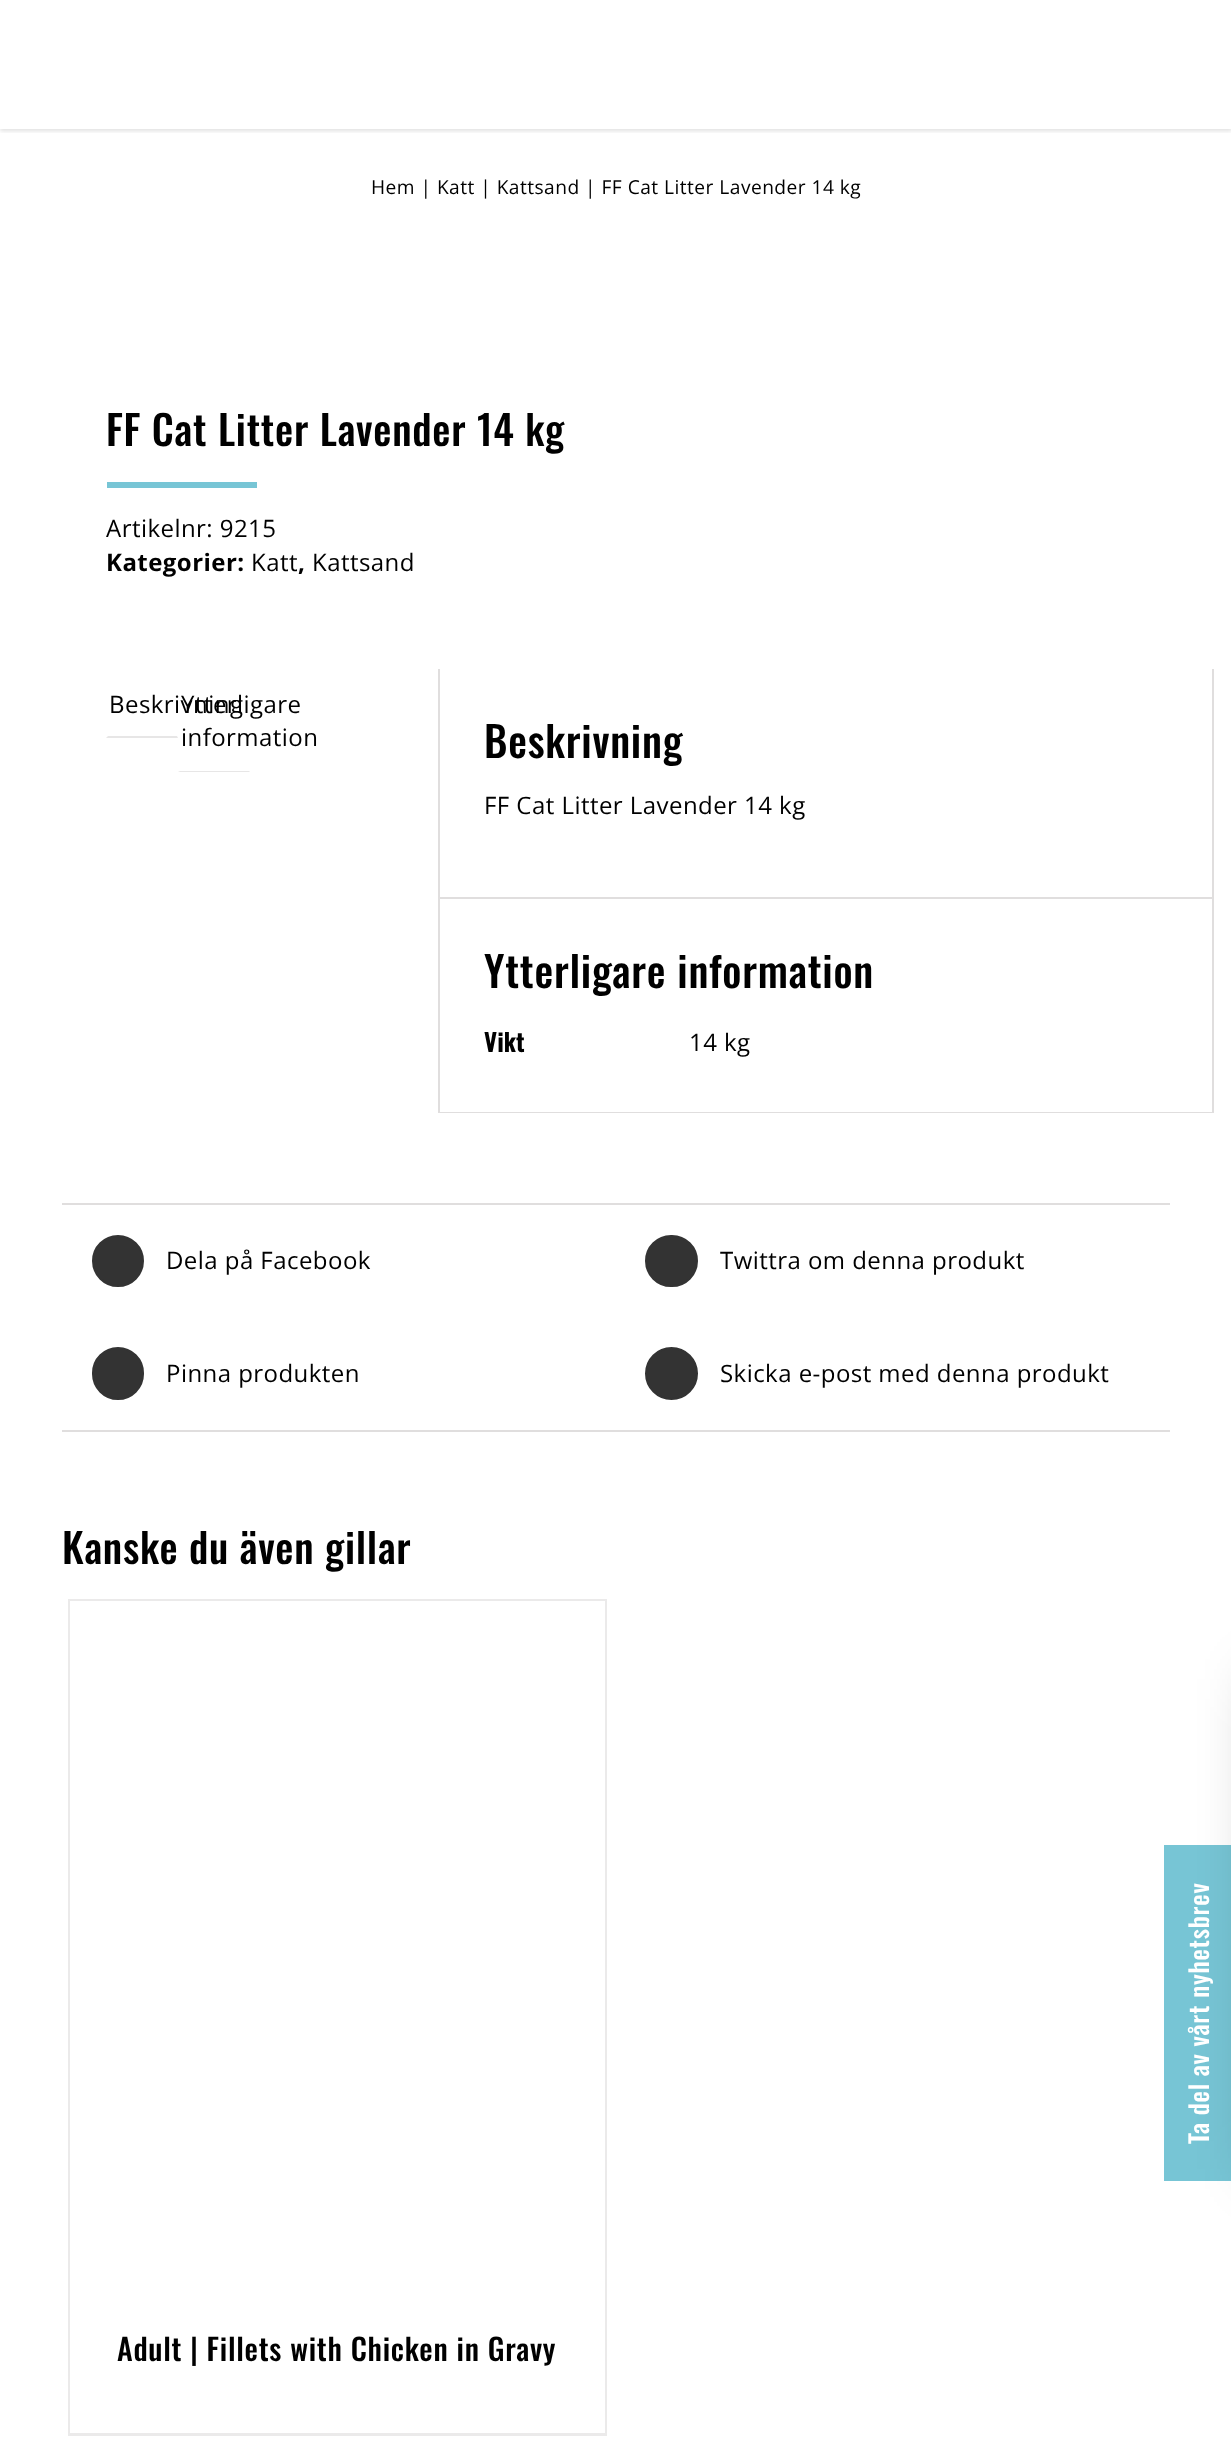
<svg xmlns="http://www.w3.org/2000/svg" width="1231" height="2438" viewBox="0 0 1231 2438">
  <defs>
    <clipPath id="clip1"><rect x="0" y="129" width="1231" height="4"/></clipPath>
  </defs>
  <rect width="100%" height="100%" fill="rgb(255,255,255)"/>
  <g clip-path="url(#clip1)">
    <rect x="0" y="2" width="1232" height="129" fill="rgba(0,0,0,0.12)" filter="blur(2px)"/>
  </g>
  <text x="371" y="194" font-family="Open Sans" font-size="19.2" letter-spacing="0.45" fill="rgb(0,0,0)">Hem | Katt | Kattsand | FF Cat Litter Lavender 14 kg</text>
  <text x="106" y="446" font-family="Oswald" font-size="40.75" font-weight="500" letter-spacing="0.75" fill="rgb(0,0,0)">FF Cat Litter Lavender 14 kg</text>
  <rect x="107" y="482" width="150" height="6" fill="rgb(119,197,213)"/>
  <text x="106" y="537" font-family="Open Sans" font-size="24" letter-spacing="0.45" fill="rgb(0,0,0)">Artikelnr: 9215</text>
  <text x="106" y="571" font-family="Open Sans" font-size="24" font-weight="bold" letter-spacing="0.45" fill="rgb(0,0,0)">Kategorier:</text>
  <text x="251" y="571" font-family="Open Sans" font-size="24" letter-spacing="0.45" fill="rgb(0,0,0)">Katt</text>
  <text x="298" y="571" font-family="Open Sans" font-size="24" font-weight="bold" letter-spacing="0.45" fill="rgb(0,0,0)">,</text>
  <text x="312" y="571" font-family="Open Sans" font-size="24" letter-spacing="0.45" fill="rgb(0,0,0)">Kattsand</text>
  <path d="M178 738H106L108 736H177Z" fill="rgb(231,230,230)"/>
  <text x="109" y="713" font-family="Open Sans" font-size="24" letter-spacing="0.45" fill="rgb(0,0,0)">Beskrivning</text>
  <path d="M250 772H178L180 771H249Z" fill="rgb(231,230,230)"/>
  <g font-family="Open Sans" font-size="24" letter-spacing="0.45" fill="rgb(0,0,0)">
    <text>
      <tspan x="181" y="713">Ytterligare</tspan>
      <tspan x="181" y="746">information</tspan>
    </text>
  </g>
  <rect x="1212" y="669" width="2" height="444" fill="rgb(224,222,222)"/>
  <rect x="438" y="897" width="776" height="2" fill="rgb(224,222,222)"/>
  <rect x="438" y="669" width="2" height="230" fill="rgb(224,222,222)"/>
  <text x="484" y="758" font-family="Oswald" font-size="42" font-weight="500" letter-spacing="0.75" fill="rgb(0,0,0)">Beskrivning</text>
  <text x="484" y="814" font-family="Open Sans" font-size="24" letter-spacing="0.45" fill="rgb(0,0,0)">FF Cat Litter Lavender 14 kg</text>
  <rect x="438" y="1112" width="776" height="1" fill="rgb(224,222,222)"/>
  <rect x="438" y="899" width="2" height="214" fill="rgb(224,222,222)"/>
  <text x="484" y="988" font-family="Oswald" font-size="42" font-weight="500" letter-spacing="0.75" fill="rgb(0,0,0)">Ytterligare information</text>
  <text x="484" y="1052" font-family="Oswald" font-size="24" font-weight="bold" letter-spacing="0.75" fill="rgb(0,0,0)">Vikt</text>
  <text x="689" y="1051" font-family="Open Sans" font-size="24" letter-spacing="0.45" fill="rgb(0,0,0)">14 kg</text>
  <rect x="62" y="1203" width="1108" height="2" fill="rgb(224,222,222)"/>
  <rect x="62" y="1430" width="1108" height="2" fill="rgb(224,222,222)"/>
  <circle cx="118" cy="1261" r="25" fill="rgb(51,51,51)" stroke="rgb(51,51,51)" stroke-width="2"/>
  <text x="166" y="1269" font-family="Open Sans" font-size="24" letter-spacing="0.45" fill="rgb(0,0,0)">Dela på Facebook</text>
  <rect x="646" y="1236" width="51" height="50" rx="25" fill="rgb(51,51,51)" stroke="rgb(51,51,51)" stroke-width="2"/>
  <text x="720" y="1269" font-family="Open Sans" font-size="24" letter-spacing="0.45" fill="rgb(0,0,0)">Twittra om denna produkt</text>
  <rect x="93" y="1348" width="50" height="51" rx="25" fill="rgb(51,51,51)" stroke="rgb(51,51,51)" stroke-width="2"/>
  <text x="166" y="1382" font-family="Open Sans" font-size="24" letter-spacing="0.45" fill="rgb(0,0,0)">Pinna produkten</text>
  <circle cx="671.5" cy="1373.5" r="25.5" fill="rgb(51,51,51)" stroke="rgb(51,51,51)" stroke-width="2"/>
  <text x="720" y="1382" font-family="Open Sans" font-size="24" letter-spacing="0.45" fill="rgb(0,0,0)">Skicka e-post med denna produkt</text>
  <text x="62" y="1564" font-family="Oswald" font-size="40.75" font-weight="500" letter-spacing="0.75" fill="rgb(0,0,0)">Kanske du även gillar</text>
  <rect x="68" y="1599" width="538" height="2" fill="rgb(235,234,234)"/>
  <rect x="605" y="1599" width="2" height="837" fill="rgb(235,234,234)"/>
  <rect x="68" y="2433" width="538" height="3" fill="rgb(235,234,234)"/>
  <rect x="68" y="1599" width="2" height="837" fill="rgb(235,234,234)"/>
  <text x="117" y="2361" font-family="Oswald" font-size="30" font-weight="500" letter-spacing="0.75" fill="rgb(0,0,0)">Adult | Fillets with Chicken in Gravy</text>
  <rect x="1164" y="1845" width="67" height="336" fill="rgb(119,197,213)"/>
  <rect x="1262" y="1679" width="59" height="490" fill="rgba(0,0,0,0.3)" filter="blur(30px)"/>
  <text x="1209" y="2144" transform="rotate(-90 1209 2144)" font-family="Oswald" font-size="25.5" font-weight="500" letter-spacing="0.75" fill="rgb(255,255,255)">Ta del av vårt nyhetsbrev</text>
</svg>
